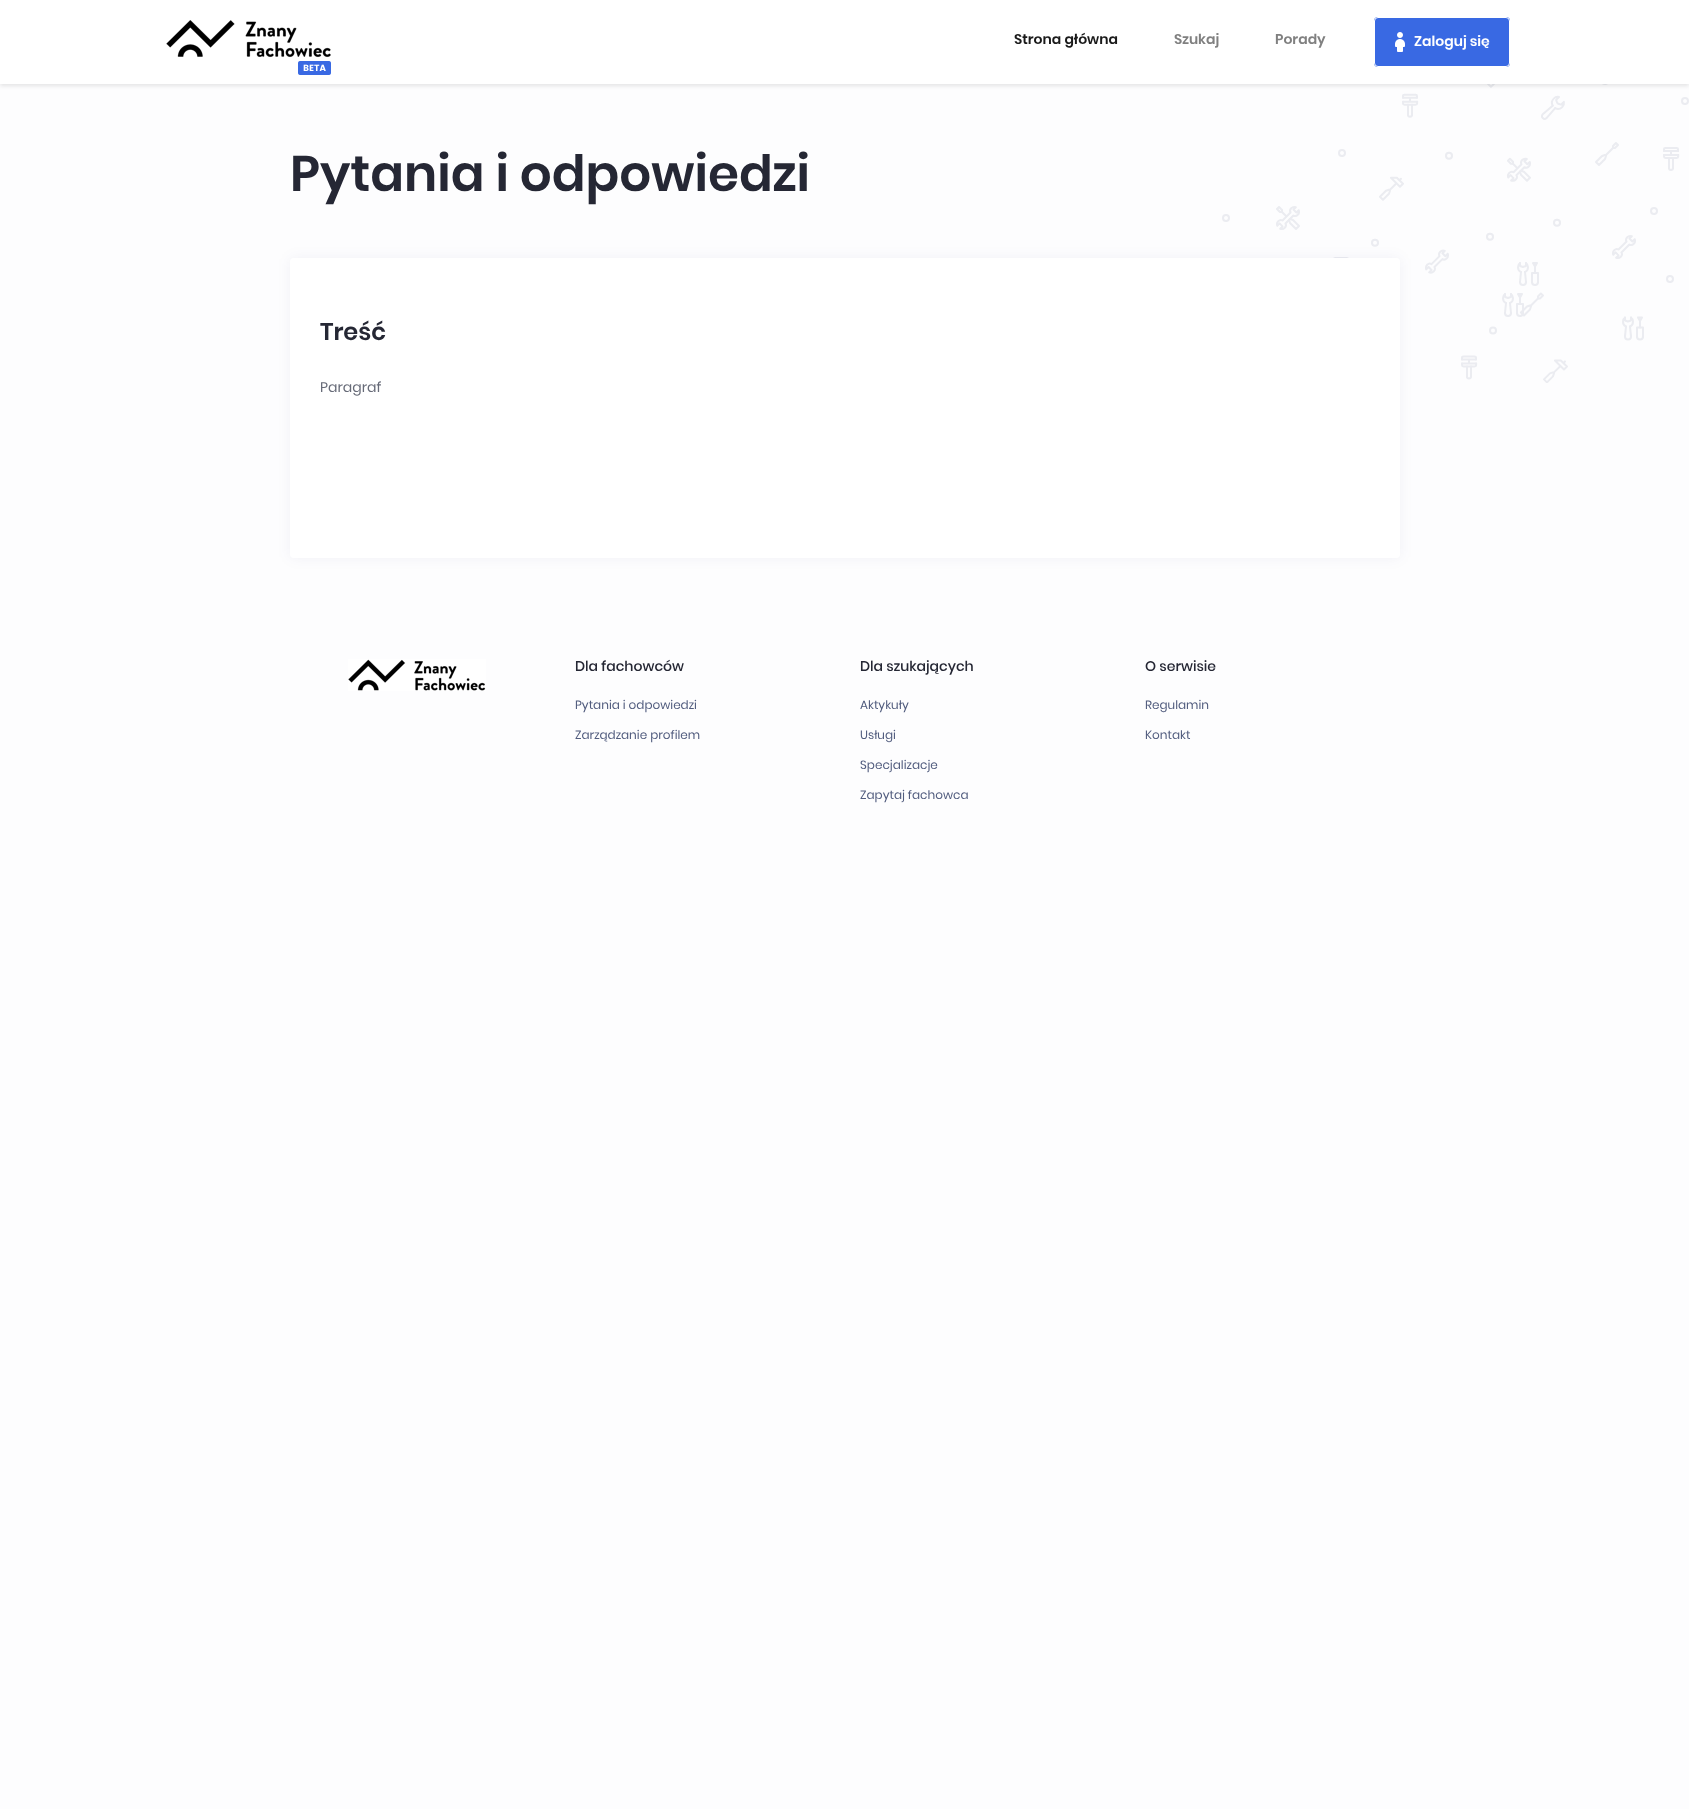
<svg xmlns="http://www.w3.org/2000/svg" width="1689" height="1809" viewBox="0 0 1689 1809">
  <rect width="100%" height="100%" fill="rgb(253,253,254)"/>
  <image x="1222" y="84" width="467" height="299" href="pic3.png"/>
  <rect x="0" y="2" width="1689" height="84" fill="rgba(0,0,0,0.1)" filter="blur(2px)"/>
  <rect x="0" y="0" width="1689" height="84" fill="rgb(255,255,255)"/>
  <image x="166" y="20" width="165" height="55" href="pic1.png"/>
  <text x="1014" y="44" font-family="Poppins" font-size="14" font-weight="600" fill="rgb(26,26,26)">Strona główna</text>
  <g font-family="Poppins" font-size="14" font-weight="600" fill="rgb(128,128,128)">
    <text x="1174" y="44">Szukaj</text>
    <text x="1275" y="44">Porady</text>
  </g>
  <rect x="1374" y="17" width="136" height="50" rx="4" fill="rgb(57,105,227)"/>
  <image x="1395" y="32" width="10" height="20" href="pic2.png"/>
  <rect x="1374.5" y="17.5" width="135" height="49" rx="3.5" fill="none" stroke="rgb(255,255,255)"/>
  <text x="1414" y="46" font-family="Poppins" font-size="14" font-weight="600" fill="rgb(255,255,255)">Zaloguj się</text>
  <text x="290" y="191" font-family="Poppins" font-size="50" font-weight="600" fill="rgb(37,39,52)">Pytania i odpowiedzi</text>
  <rect x="290" y="258" width="1110" height="300" rx="4" fill="rgba(5,25,97,0.05)" filter="blur(7px)"/>
  <rect x="290" y="258" width="1110" height="300" rx="4" fill="rgb(255,255,255)"/>
  <text x="320" y="340" font-family="Poppins" font-size="24" font-weight="600" fill="rgb(37,39,52)">Treść</text>
  <text x="320" y="392" font-family="Poppins" font-size="14" fill="rgb(103,107,120)">Paragraf</text>
  <image x="348" y="659" width="138" height="32" href="pic4.png"/>
  <text x="575" y="671" font-family="Poppins" font-size="14" font-weight="500" fill="rgb(37,39,52)">Dla fachowców</text>
  <g font-family="Poppins" font-size="12" fill="rgb(81,92,126)">
    <text x="575" y="709">Pytania i odpowiedzi</text>
    <text x="575" y="739">Zarządzanie profilem</text>
  </g>
  <text x="860" y="671" font-family="Poppins" font-size="14" font-weight="500" fill="rgb(37,39,52)">Dla szukających</text>
  <g font-family="Poppins" font-size="12" fill="rgb(81,92,126)">
    <text x="860" y="709">Aktykuły</text>
    <text x="860" y="739">Usługi</text>
    <text x="860" y="769">Specjalizacje</text>
    <text x="860" y="799">Zapytaj fachowca</text>
  </g>
  <text x="1145" y="671" font-family="Poppins" font-size="14" font-weight="500" fill="rgb(37,39,52)">O serwisie</text>
  <g font-family="Poppins" font-size="12" fill="rgb(81,92,126)">
    <text x="1145" y="709">Regulamin</text>
    <text x="1145" y="739">Kontakt</text>
  </g>
</svg>
